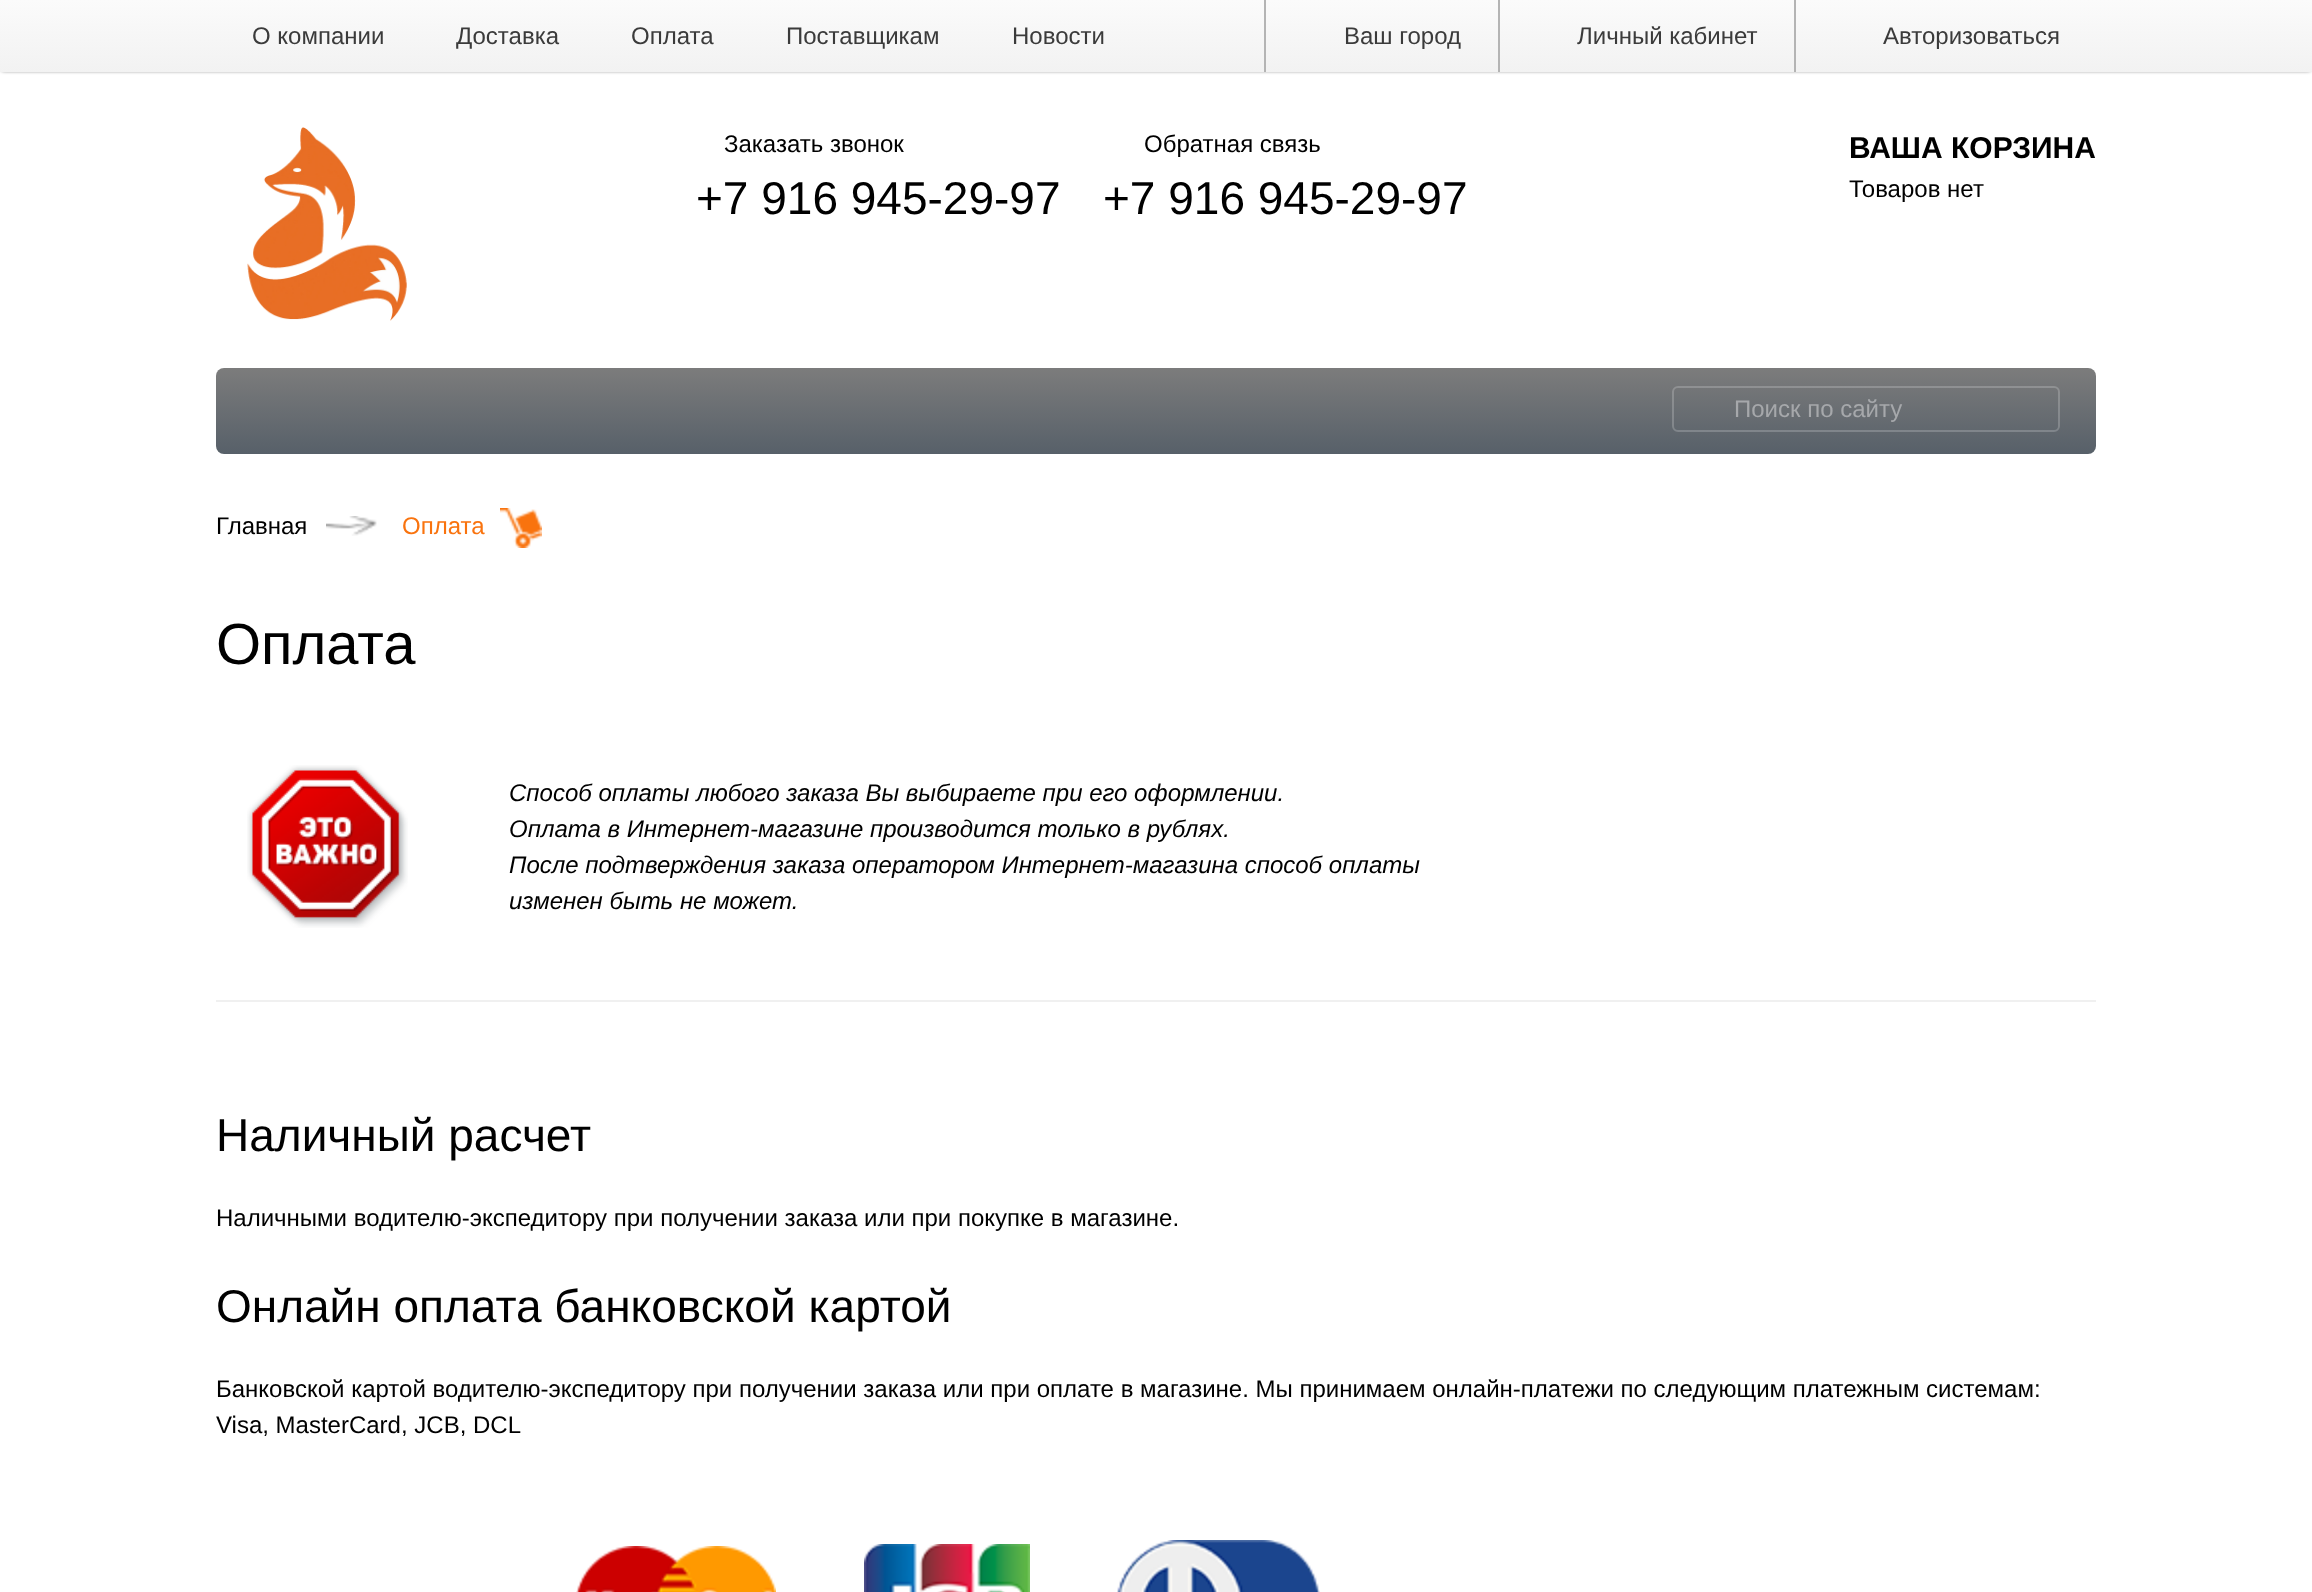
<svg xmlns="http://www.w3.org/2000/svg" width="2312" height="1592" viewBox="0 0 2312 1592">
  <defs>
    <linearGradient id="g1" gradientUnits="userSpaceOnUse" x1="1156" y1="0" x2="1156" y2="72"><stop offset="0" stop-color="rgb(251,251,251)"/><stop offset="1" stop-color="rgb(242,242,242)"/></linearGradient>
    <linearGradient id="g2" gradientUnits="userSpaceOnUse" x1="1156" y1="368" x2="1156" y2="454"><stop offset="0" stop-color="rgb(124,124,124)"/><stop offset="1" stop-color="rgb(87,96,105)"/></linearGradient>
  </defs>
  <rect width="100%" height="100%" fill="rgb(255,255,255)"/>
  <rect x="2" y="2" width="2308" height="68" fill="rgb(0,0,0)" filter="blur(2px)"/>
  <rect x="0" y="0" width="2312" height="72" fill="url(#g1)"/>
  <g font-family="Liberation Sans" font-size="24" fill="rgb(59,59,59)">
    <text x="252" y="44">О компании</text>
    <text x="456" y="44">Доставка</text>
    <text x="631" y="44">Оплата</text>
    <text x="786" y="44">Поставщикам</text>
    <text x="1012" y="44">Новости</text>
  </g>
  <rect x="1264" y="0" width="2" height="72" fill="rgb(180,180,180)"/>
  <text x="1344" y="44" font-family="Liberation Sans" font-size="24" fill="rgb(59,59,59)">Ваш город</text>
  <rect x="1498" y="0" width="2" height="72" fill="rgb(180,180,180)"/>
  <text x="1577" y="44" font-family="Liberation Sans" font-size="24" fill="rgb(59,59,59)">Личный кабинет</text>
  <rect x="1794" y="0" width="2" height="72" fill="rgb(180,180,180)"/>
  <text x="1883" y="44" font-family="Liberation Sans" font-size="24" fill="rgb(59,59,59)">Авторизоваться</text>
  <image x="247" y="127" width="160" height="194" href="pic1.png"/>
  <text x="724" y="152" font-family="Liberation Sans" font-size="24" fill="rgb(0,0,0)">Заказать звонок</text>
  <text x="696" y="214" font-family="Liberation Sans" font-size="46" fill="rgb(0,0,0)">+7 916 945-29-97</text>
  <text x="1144" y="152" font-family="Liberation Sans" font-size="24" fill="rgb(0,0,0)">Обратная связь</text>
  <text x="1103" y="214" font-family="Liberation Sans" font-size="46" fill="rgb(0,0,0)">+7 916 945-29-97</text>
  <text x="1849" y="158" font-family="Liberation Sans" font-size="30" font-weight="bold" fill="rgb(0,0,0)">ВАША КОРЗИНА</text>
  <text x="1849" y="197" font-family="Liberation Sans" font-size="24" fill="rgb(0,0,0)">Товаров нет</text>
  <rect x="216" y="368" width="1880" height="86" rx="8" fill="url(#g2)"/>
  <rect x="1673" y="387" width="386" height="44" rx="5" fill="none" stroke="rgba(255,255,255,0.2)" stroke-width="2"/>
  <text x="1734" y="417" font-family="Liberation Sans" font-size="24" fill="rgb(166,168,171)">Поиск по сайту</text>
  <text x="216" y="534" font-family="Liberation Sans" font-size="24" fill="rgb(0,0,0)">Главная</text>
  <image x="326" y="516" width="51" height="20" href="pic2.png"/>
  <text x="402" y="534" font-family="Liberation Sans" font-size="24" fill="rgb(249,115,14)">Оплата</text>
  <image x="500" y="508" width="42" height="40" href="pic3.png"/>
  <text x="216" y="664" font-family="Liberation Sans" font-size="58" fill="rgb(0,0,0)">Оплата</text>
  <rect x="216" y="1000" width="1880" height="2" fill="rgb(240,240,240)"/>
  <image x="247" y="765" width="161" height="163" href="pic4.png"/>
  <g font-family="Liberation Sans" font-size="24" font-style="italic" fill="rgb(0,0,0)">
    <text>
      <tspan x="509" y="801">Способ оплаты любого заказа Вы выбираете при его оформлении.</tspan>
      <tspan x="509" y="837">Оплата в Интернет-магазине производится только в рублях.</tspan>
      <tspan x="509" y="873">После подтверждения заказа оператором Интернет-магазина способ оплаты</tspan>
      <tspan x="509" y="909">изменен быть не может.</tspan>
    </text>
  </g>
  <text x="216" y="1151" font-family="Liberation Sans" font-size="46" fill="rgb(0,0,0)">Наличный расчет</text>
  <text x="216" y="1226" font-family="Liberation Sans" font-size="24" fill="rgb(0,0,0)">Наличными водителю-экспедитору при получении заказа или при покупке в магазине.</text>
  <text x="216" y="1322" font-family="Liberation Sans" font-size="46" fill="rgb(0,0,0)">Онлайн оплата банковской картой</text>
  <g font-family="Liberation Sans" font-size="24" fill="rgb(0,0,0)">
    <text>
      <tspan x="216" y="1397">Банковской картой водителю-экспедитору при получении заказа или при оплате в магазине. Мы принимаем онлайн-платежи по cледующим платежным системам:</tspan>
      <tspan x="216" y="1433">Visa, MasterCard, JCB, DCL</tspan>
    </text>
  </g>
  <image x="576" y="1546" width="200" height="46" href="pic5.png"/>
  <image x="864" y="1544" width="166" height="48" href="pic6.png"/>
  <image x="1117" y="1540" width="203" height="52" href="pic7.png"/>
</svg>
